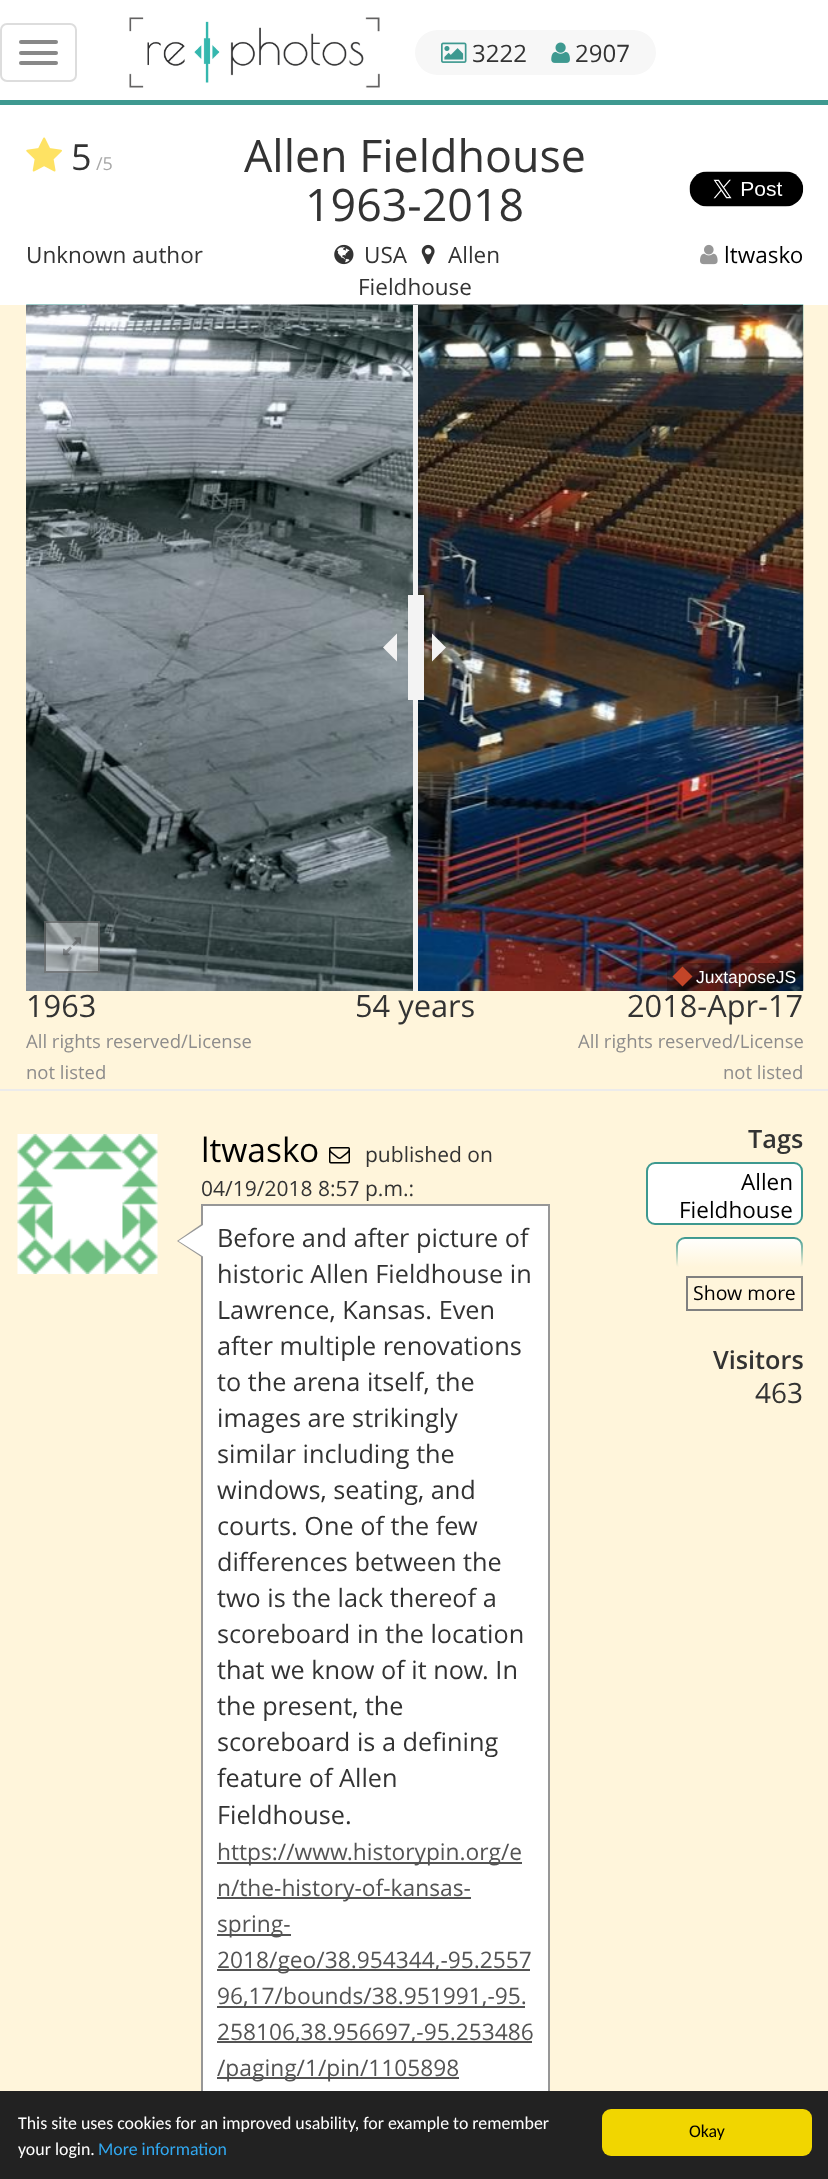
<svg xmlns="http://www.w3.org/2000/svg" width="828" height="2179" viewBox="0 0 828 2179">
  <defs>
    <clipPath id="clip1"><rect x="576" y="1153" width="227" height="114"/></clipPath>
    <linearGradient id="g1" gradientUnits="userSpaceOnUse" x1="690" y1="1237" x2="690" y2="1267"><stop offset="0" stop-color="rgb(255,245,219)" stop-opacity="0"/><stop offset="1" stop-color="rgb(255,245,219)"/></linearGradient>
  </defs>
  <rect width="100%" height="100%" fill="rgb(255,255,255)"/>
  <rect x="0" y="100" width="828" height="5" fill="rgb(62,153,144)"/>
  <rect x="1" y="24" width="75" height="57" rx="6" fill="none" stroke="rgb(221,221,221)" stroke-width="2"/>
  <rect x="19" y="40" width="39" height="4" rx="2" fill="rgb(136,136,136)"/>
  <rect x="19" y="51" width="39" height="4" rx="2" fill="rgb(136,136,136)"/>
  <rect x="19" y="61" width="39" height="4" rx="2" fill="rgb(136,136,136)"/>
  <image x="129" y="17" width="251" height="71" href="pic1.png"/>
  <rect x="415" y="30" width="241" height="45" rx="22.5" fill="rgb(247,247,247)"/>
  <image x="441" y="42" width="26" height="21" href="pic2.png"/>
  <text x="472" y="62" font-family="Open Sans" font-size="24" fill="rgb(51,51,51)">3222</text>
  <image x="551" y="42" width="19" height="21" href="pic3.png"/>
  <text x="575" y="62" font-family="Open Sans" font-size="24" fill="rgb(51,51,51)">2907</text>
  <image x="26" y="137" width="36" height="35" href="pic4.png"/>
  <text x="71" y="170" font-family="Open Sans" font-size="36" fill="rgb(51,51,51)">5</text>
  <text x="96" y="170" font-family="Open Sans" font-size="18" fill="rgb(167,167,167)">/5</text>
  <g font-family="Open Sans" font-size="44.75" fill="rgb(51,51,51)">
    <text x="244" y="172">Allen Fieldhouse</text>
    <text x="305" y="221">1963-2018</text>
  </g>
  <image x="689" y="171" width="115" height="36" href="pic5.png"/>
  <text x="26" y="263" font-family="Open Sans" font-size="22.5" fill="rgb(51,51,51)">Unknown author</text>
  <image x="334" y="244" width="20" height="21" href="pic6.png"/>
  <text x="364" y="263" font-family="Open Sans" font-size="22.5" fill="rgb(51,51,51)">USA</text>
  <image x="421" y="244" width="14" height="21" href="pic7.png"/>
  <g font-family="Open Sans" font-size="22.5" fill="rgb(51,51,51)">
    <text x="448" y="263">Allen</text>
    <text x="358" y="295">Fieldhouse</text>
  </g>
  <image x="700" y="244" width="18" height="21" href="pic8.png"/>
  <text x="724" y="263" font-family="Open Sans" font-size="22.5" fill="rgb(0,0,0)">ltwasko</text>
  <rect x="0" y="305" width="828" height="784" fill="rgb(255,245,219)"/>
  <image x="26" y="304" width="778" height="687" href="pic9.png"/>
  <image x="26" y="305" width="387" height="686" href="pic11.png"/>
  <rect x="44" y="921" width="56" height="52" fill="rgba(255,255,255,0.4)"/>
  <rect x="45" y="922" width="54" height="50" fill="none" stroke="rgba(22,22,22,0.4)" stroke-width="2"/>
  <image x="63" y="937" width="18" height="19" href="pic10.png"/>
  <path d="M397 633.5V661.5L383 647.5Z" fill="rgb(243,243,243)"/>
  <rect x="413" y="305" width="5" height="686" fill="rgb(243,243,243)"/>
  <image x="418" y="305" width="385" height="686" href="pic12.png"/>
  <rect x="408" y="595" width="16" height="105" fill="rgb(243,243,243)"/>
  <path d="M432 661.5V633.5L446 647.5Z" fill="rgb(243,243,243)"/>
  <rect x="667" y="963" width="136" height="28" fill="rgba(0,0,0,0.25)"/>
  <path d="M682.5 966.5L692.5 976.5L682.5 986.5L672.5 976.5Z" fill="rgb(195,69,40)"/>
  <text x="696" y="983" font-family="Liberation Sans" font-size="17.5" fill="rgb(255,255,255)">JuxtaposeJS</text>
  <text x="26" y="1017" font-family="Open Sans" font-size="30.75" fill="rgb(51,51,51)">1963</text>
  <g font-family="Open Sans" font-size="18.5" fill="rgb(141,140,140)">
    <text>
      <tspan x="26" y="1048">All rights reserved/License</tspan>
      <tspan x="26" y="1079">not listed</tspan>
    </text>
  </g>
  <g font-family="Open Sans" font-size="30.75" fill="rgb(51,51,51)">
    <text x="355" y="1017">54 years</text>
    <text x="627" y="1017">2018-Apr-17</text>
  </g>
  <g font-family="Open Sans" font-size="18.5" fill="rgb(141,140,140)">
    <text x="578" y="1048">All rights reserved/License</text>
    <text x="723" y="1079">not listed</text>
  </g>
  <rect x="0" y="1091" width="828" height="1000" fill="rgb(255,245,219)"/>
  <rect x="0" y="1089" width="828" height="2" fill="rgb(236,235,235)"/>
  <image x="17" y="1134" width="141" height="140" href="pic13.png"/>
  <text x="201" y="1162" font-family="Open Sans" font-size="33.5" fill="rgb(0,0,0)">ltwasko</text>
  <image x="329" y="1147" width="21" height="17" href="pic14.png"/>
  <g font-family="Open Sans" font-size="21" fill="rgb(51,51,51)">
    <text x="365" y="1162">published on</text>
    <text x="201" y="1196">04/19/2018 8:57 p.m.:</text>
  </g>
  <rect x="203" y="1206" width="345" height="885" fill="rgb(255,255,255)"/>
  <rect x="202" y="1205" width="347" height="898" fill="none" stroke="rgb(151,151,151)" stroke-width="2"/>
  <path d="M203 1223V1258L177 1241Z" fill="rgb(151,151,151)"/>
  <path d="M203 1225V1256.5L178.5 1241Z" fill="rgb(255,255,255)"/>
  <g font-family="Open Sans" font-size="25.25" fill="rgb(51,51,51)">
    <text>
      <tspan x="217" y="1247">Before and after picture of</tspan>
      <tspan x="217" y="1283">historic Allen Fieldhouse in</tspan>
      <tspan x="217" y="1319">Lawrence, Kansas. Even</tspan>
      <tspan x="217" y="1355">after multiple renovations</tspan>
      <tspan x="217" y="1391">to the arena itself, the</tspan>
      <tspan x="217" y="1427">images are strikingly</tspan>
      <tspan x="217" y="1463">similar including the</tspan>
      <tspan x="217" y="1499">windows, seating, and</tspan>
      <tspan x="217" y="1535">courts. One of the few</tspan>
      <tspan x="217" y="1571">differences between the</tspan>
      <tspan x="217" y="1607">two is the lack thereof a</tspan>
      <tspan x="217" y="1643">scoreboard in the location</tspan>
      <tspan x="217" y="1679">that we know of it now. In</tspan>
      <tspan x="217" y="1715">the present, the</tspan>
      <tspan x="217" y="1751">scoreboard is a defining</tspan>
      <tspan x="217" y="1787">feature of Allen</tspan>
      <tspan x="217" y="1824">Fieldhouse.</tspan>
    </text>
  </g>
  <rect x="217" y="1862" width="305" height="2" fill="rgb(84,84,84)"/>
  <text x="217" y="1860" font-family="Open Sans" font-size="22.75" fill="rgb(84,84,84)">https://www.historypin.org/e</text>
  <rect x="217" y="1897" width="254" height="2" fill="rgb(84,84,84)"/>
  <text x="217" y="1896" font-family="Open Sans" font-size="22.75" fill="rgb(84,84,84)">n/the-history-of-kansas-</text>
  <rect x="217" y="1934" width="74" height="2" fill="rgb(84,84,84)"/>
  <text x="217" y="1932" font-family="Open Sans" font-size="22.75" fill="rgb(84,84,84)">spring-</text>
  <rect x="217" y="1969" width="313" height="2" fill="rgb(84,84,84)"/>
  <text x="217" y="1968" font-family="Open Sans" font-size="22.75" fill="rgb(84,84,84)">2018/geo/38.954344,-95.2557</text>
  <rect x="217" y="2006" width="308" height="2" fill="rgb(84,84,84)"/>
  <text x="217" y="2004" font-family="Open Sans" font-size="22.75" fill="rgb(84,84,84)">96,17/bounds/38.951991,-95.</text>
  <rect x="217" y="2041" width="315" height="2" fill="rgb(84,84,84)"/>
  <text x="217" y="2040" font-family="Open Sans" font-size="22.75" fill="rgb(84,84,84)">258106,38.956697,-95.253486</text>
  <rect x="217" y="2077" width="242" height="2" fill="rgb(84,84,84)"/>
  <text x="217" y="2076" font-family="Open Sans" font-size="22.75" fill="rgb(84,84,84)">/paging/1/pin/1105898</text>
  <text x="748" y="1148" font-family="Open Sans" font-size="25.25" font-weight="600" fill="rgb(51,51,51)">Tags</text>
  <rect x="647" y="1163" width="155" height="61" rx="8" fill="rgb(255,255,255)" stroke="rgb(62,153,144)" stroke-width="2"/>
  <g font-family="Open Sans" font-size="22.5" fill="rgb(0,0,0)">
    <text x="741" y="1190">Allen</text>
    <text x="679" y="1218">Fieldhouse</text>
  </g>
  <g clip-path="url(#clip1)">
    <rect x="677" y="1238" width="125" height="33" rx="8" fill="rgb(255,255,255)" stroke="rgb(62,153,144)" stroke-width="2"/>
  </g>
  <rect x="676" y="1238" width="127" height="29" fill="url(#g1)"/>
  <rect x="687" y="1277" width="115" height="33" fill="none" stroke="rgb(128,128,128)" stroke-width="2"/>
  <text x="693" y="1300" font-family="Open Sans" font-size="19.5" fill="rgb(0,0,0)">Show more</text>
  <text x="713" y="1369" font-family="Open Sans" font-size="25.25" font-weight="600" fill="rgb(51,51,51)">Visitors</text>
  <text x="755" y="1403" font-family="Open Sans" font-size="28" fill="rgb(51,51,51)">463</text>
  <rect x="0" y="2091" width="828" height="88" fill="rgb(34,34,34)"/>
  <g font-family="Carlito" font-size="17.85" fill="rgb(255,255,255)">
    <text>
      <tspan x="18" y="2129">This site uses cookies for an improved usability, for example to remember</tspan>
      <tspan x="18" y="2155">your login.</tspan>
    </text>
  </g>
  <text x="98" y="2155" font-family="Carlito" font-size="17.85" fill="rgb(49,168,240)">More information</text>
  <rect x="602" y="2109" width="210" height="47" rx="9" fill="rgb(241,214,0)"/>
  <text x="689" y="2137" font-family="Carlito" font-size="17.85" fill="rgb(0,0,0)">Okay</text>
</svg>
